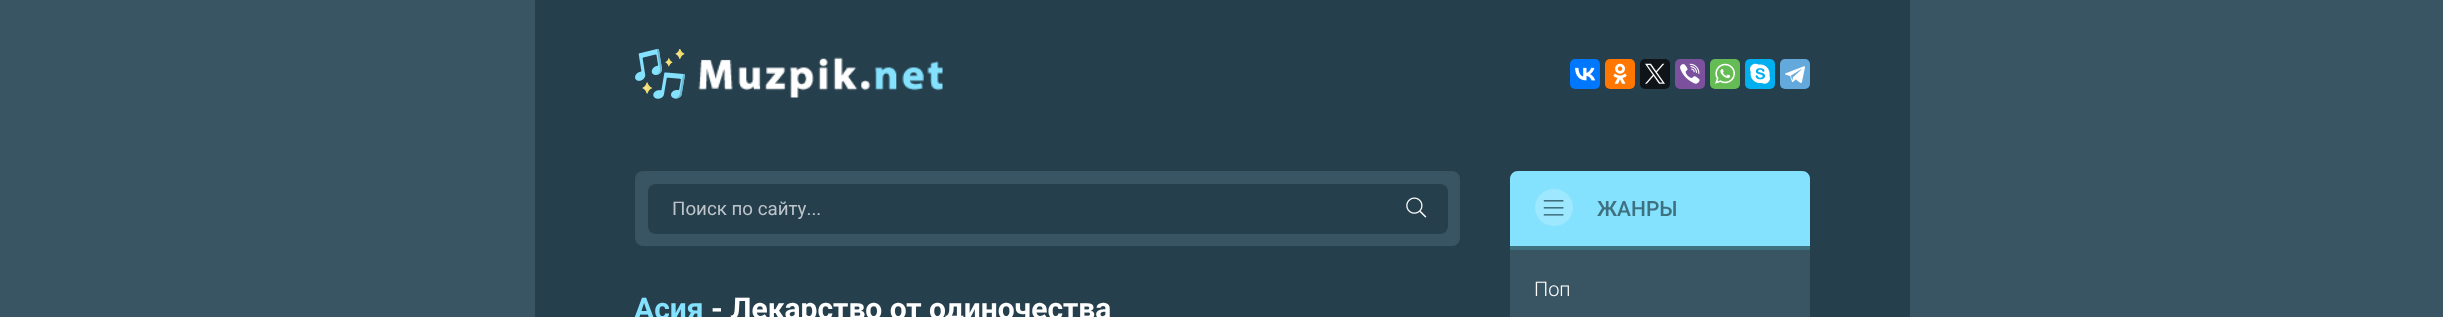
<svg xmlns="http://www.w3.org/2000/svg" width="2443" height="317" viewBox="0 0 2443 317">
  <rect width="100%" height="100%" fill="rgb(57,84,98)"/>
  <rect x="535" y="0" width="1375" height="317" fill="rgb(38,63,77)"/>
  <image x="635" y="49" width="50" height="50" href="pic1.png"/>
  <image x="698" y="57" width="245" height="41" href="pic2.png"/>
  <rect x="1570" y="59" width="30" height="30" rx="5" fill="rgb(0,119,255)"/>
  <image x="1575" y="67" width="20" height="14" href="pic3.png"/>
  <rect x="1605" y="59" width="30" height="30" rx="5" fill="rgb(255,119,0)"/>
  <image x="1613" y="63" width="14" height="21" href="pic4.png"/>
  <rect x="1640" y="59" width="30" height="30" rx="5" fill="rgb(15,20,25)"/>
  <image x="1645" y="63" width="20" height="21" href="pic5.png"/>
  <rect x="1675" y="59" width="30" height="30" rx="5" fill="rgb(123,81,157)"/>
  <image x="1680" y="63" width="20" height="21" href="pic6.png"/>
  <rect x="1710" y="59" width="30" height="30" rx="5" fill="rgb(101,188,84)"/>
  <image x="1715" y="63" width="20" height="21" href="pic7.png"/>
  <rect x="1745" y="59" width="30" height="30" rx="5" fill="rgb(0,175,240)"/>
  <image x="1750" y="63" width="20" height="21" href="pic8.png"/>
  <rect x="1780" y="59" width="30" height="30" rx="5" fill="rgb(100,169,220)"/>
  <image x="1785" y="66" width="20" height="17" href="pic9.png"/>
  <rect x="635" y="171" width="825" height="75" rx="8" fill="rgb(57,84,98)"/>
  <rect x="648" y="184" width="800" height="50" rx="8" fill="rgb(38,63,77)"/>
  <text x="672" y="215" font-family="Roboto" font-size="18.75" fill="rgb(190,197,202)">Поиск по сайту...</text>
  <image x="1406" y="197" width="21" height="21" href="pic10.png"/>
  <text x="634" y="319" font-family="Roboto" font-size="30" font-weight="bold" fill="rgb(133,226,255)">Асия</text>
  <text x="711" y="319" font-family="Roboto" font-size="30" font-weight="bold" fill="rgb(255,255,255)">- Лекарство от одиночества</text>
  <rect x="1510" y="171" width="300" height="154" rx="8" fill="rgb(57,84,98)"/>
  <path d="M1518 171H1802C1806.5 171 1810 174.5 1810 179V250H1510V179C1510 174.5 1513.5 171 1518 171Z" fill="rgb(133,226,255)"/>
  <rect x="1510" y="246" width="300" height="4" fill="rgb(63,112,128)"/>
  <rect x="1535" y="189" width="38" height="37" rx="18.5" fill="rgb(157,232,255)"/>
  <image x="1543" y="200" width="21" height="16" href="pic11.png"/>
  <text x="1597" y="216" font-family="Roboto" font-size="21" font-weight="500" fill="rgb(63,112,128)">ЖАНРЫ</text>
  <text x="1534" y="296" font-family="Roboto" font-size="20" font-weight="300" fill="rgb(255,255,255)">Поп</text>
</svg>
